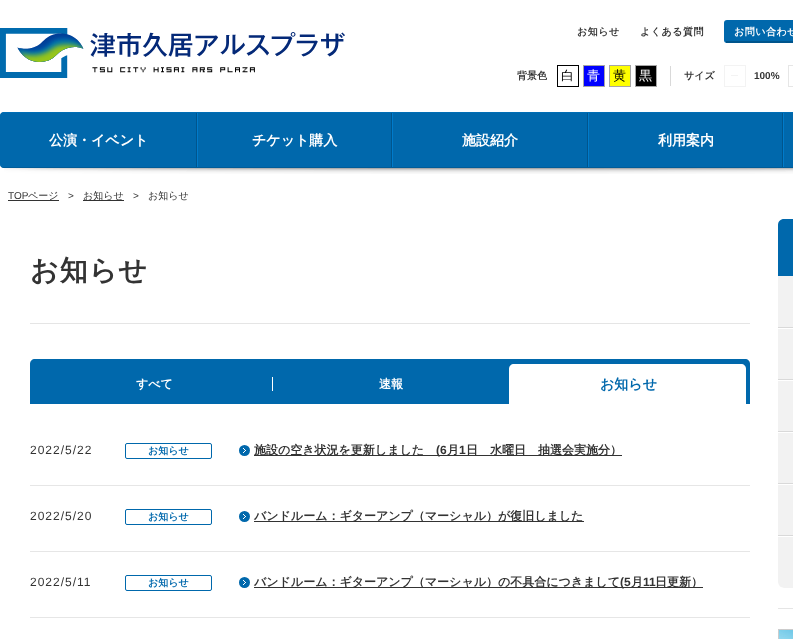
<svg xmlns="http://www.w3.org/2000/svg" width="793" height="639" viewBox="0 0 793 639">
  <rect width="100%" height="100%" fill="rgb(255,255,255)"/>
  <image x="0" y="28" width="345" height="50" href="pic1.png"/>
  <g font-family="WenQuanYi Zen Hei" font-size="10" font-weight="bold" letter-spacing="0.5" fill="rgb(51,51,51)">
    <text x="577" y="35">お知らせ</text>
    <text x="640" y="35">よくある質問</text>
  </g>
  <rect x="724" y="20" width="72" height="23" rx="3" fill="rgb(0,104,172)"/>
  <rect x="726" y="41" width="67" height="2" fill="rgb(0,85,140)"/>
  <text x="734" y="35" font-family="WenQuanYi Zen Hei" font-size="10" font-weight="bold" letter-spacing="0.5" fill="rgb(255,255,255)">お問い合わせ</text>
  <text x="517" y="79" font-family="WenQuanYi Zen Hei" font-size="10" font-weight="bold" fill="rgb(51,51,51)">背景色</text>
  <rect x="557.5" y="65.5" width="21" height="21" fill="none" stroke="rgb(0,0,0)"/>
  <text x="561" y="80" font-family="WenQuanYi Zen Hei" font-size="13" font-weight="500" fill="rgb(0,0,0)">白</text>
  <rect x="583.5" y="65.5" width="21" height="21" fill="rgb(0,0,255)" stroke="rgb(166,166,166)"/>
  <text x="587" y="80" font-family="WenQuanYi Zen Hei" font-size="13" font-weight="500" fill="rgb(255,255,255)">青</text>
  <rect x="609.5" y="65.5" width="21" height="21" fill="rgb(255,255,0)" stroke="rgb(166,166,166)"/>
  <text x="613" y="80" font-family="WenQuanYi Zen Hei" font-size="13" font-weight="500" fill="rgb(0,0,0)">黄</text>
  <rect x="635.5" y="65.5" width="21" height="21" fill="rgb(0,0,0)" stroke="rgb(166,166,166)"/>
  <text x="639" y="80" font-family="WenQuanYi Zen Hei" font-size="13" font-weight="500" fill="rgb(255,255,255)">黒</text>
  <rect x="670" y="66" width="1" height="20" fill="rgb(217,217,217)"/>
  <text x="684" y="79" font-family="WenQuanYi Zen Hei" font-size="10" font-weight="bold" fill="rgb(51,51,51)">サイズ</text>
  <rect x="724.5" y="65.5" width="21" height="21" fill="none" stroke="rgb(243,243,243)"/>
  <rect x="731" y="75" width="7" height="1" fill="rgb(243,243,243)"/>
  <text x="754" y="79" font-family="Liberation Sans" font-size="10" font-weight="bold" fill="rgb(51,51,51)">100%</text>
  <rect x="788.5" y="65.5" width="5" height="21" fill="none" stroke="rgb(230,230,230)"/>
  <image x="4" y="168" width="789" height="6" href="pic2.png"/>
  <rect x="0" y="112" width="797" height="56" rx="4" fill="rgb(0,104,172)"/>
  <path d="M1.5 113.5L4 112.5H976L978.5 113.5" fill="none" stroke="rgb(0,110,182)"/>
  <path d="M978.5 166.5L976 167.5H4L1.5 166.5" fill="none" stroke="rgb(0,92,152)"/>
  <path d="M1.5 166.5L.5 164.5V115.5L1.5 113.5" fill="none" stroke="rgb(0,104,172)"/>
  <rect x="196" y="113" width="1" height="54" fill="rgb(0,85,141)"/>
  <rect x="1" y="113" width="3" height="54" fill="rgb(0,104,172)"/>
  <text x="49" y="145" font-family="WenQuanYi Zen Hei" font-size="14" font-weight="bold" fill="rgb(255,255,255)">公演・イベント</text>
  <rect x="391" y="113" width="1" height="54" fill="rgb(0,85,141)"/>
  <rect x="197" y="113" width="1" height="54" fill="rgb(0,123,203)"/>
  <text x="252" y="145" font-family="WenQuanYi Zen Hei" font-size="14" font-weight="bold" fill="rgb(255,255,255)">チケット購入</text>
  <rect x="587" y="113" width="1" height="54" fill="rgb(0,85,141)"/>
  <rect x="392" y="113" width="1" height="54" fill="rgb(0,123,203)"/>
  <text x="462" y="145" font-family="WenQuanYi Zen Hei" font-size="14" font-weight="bold" fill="rgb(255,255,255)">施設紹介</text>
  <rect x="782" y="113" width="1" height="54" fill="rgb(0,85,141)"/>
  <rect x="588" y="113" width="1" height="54" fill="rgb(0,123,203)"/>
  <text x="658" y="145" font-family="WenQuanYi Zen Hei" font-size="14" font-weight="bold" fill="rgb(255,255,255)">利用案内</text>
  <rect x="783" y="113" width="1" height="54" fill="rgb(0,123,203)"/>
  <text x="8" y="199" font-family="Liberation Sans" font-size="10" fill="rgb(51,51,51)">TOP</text>
  <rect x="8" y="200" width="51" height="1" fill="rgb(51,51,51)"/>
  <text x="28" y="199" font-family="WenQuanYi Zen Hei" font-size="10" font-weight="500" fill="rgb(51,51,51)">ページ</text>
  <text x="68" y="199" font-family="Liberation Sans" font-size="10" fill="rgb(51,51,51)">&gt;</text>
  <rect x="83" y="200" width="41" height="1" fill="rgb(51,51,51)"/>
  <text x="83" y="199" font-family="WenQuanYi Zen Hei" font-size="10" font-weight="500" fill="rgb(51,51,51)">お知らせ</text>
  <text x="133" y="199" font-family="Liberation Sans" font-size="10" fill="rgb(51,51,51)">&gt;</text>
  <text x="148" y="199" font-family="WenQuanYi Zen Hei" font-size="10" font-weight="500" fill="rgb(51,51,51)">お知らせ</text>
  <rect x="30" y="323" width="720" height="1" fill="rgb(229,229,229)"/>
  <text x="30" y="280" font-family="WenQuanYi Zen Hei" font-size="28" font-weight="bold" letter-spacing="1" fill="rgb(51,51,51)">お知らせ</text>
  <path d="M35 359H745C748 359 750 361 750 364V405H30V364C30 361 32 359 35 359Z" fill="rgb(0,104,172)"/>
  <rect x="272" y="377" width="1" height="14" fill="rgb(255,255,255)"/>
  <g font-family="WenQuanYi Zen Hei" font-size="12" font-weight="bold" fill="rgb(255,255,255)">
    <text x="136" y="388">すべて</text>
    <text x="379" y="388">速報</text>
  </g>
  <path d="M514 364H741C744 364 746 366 746 369V405H509V369C509 366 511 364 514 364Z" fill="rgb(255,255,255)"/>
  <text x="600" y="389" font-family="WenQuanYi Zen Hei" font-size="14" font-weight="bold" fill="rgb(0,104,172)">お知らせ</text>
  <rect x="30" y="404" width="720" height="1" fill="rgb(255,255,255)"/>
  <rect x="30" y="485" width="720" height="1" fill="rgb(230,230,230)"/>
  <text x="30" y="454" font-family="Liberation Sans" font-size="12" letter-spacing="1" fill="rgb(51,51,51)">2022/5/22</text>
  <rect x="125.5" y="443.5" width="86" height="15" rx="1.5" fill="none" stroke="rgb(0,104,172)"/>
  <text x="148" y="454" font-family="WenQuanYi Zen Hei" font-size="10" font-weight="bold" fill="rgb(0,104,172)">お知らせ</text>
  <circle cx="244.5" cy="450.5" r="5.5" fill="rgb(0,104,172)"/>
  <image x="243" y="448" width="3" height="5" href="pic3.png"/>
  <rect x="254" y="455" width="368" height="1" fill="rgb(51,51,51)"/>
  <text x="254" y="454" font-family="WenQuanYi Zen Hei" font-size="12" font-weight="bold" fill="rgb(51,51,51)">施設の空き状況を更新しました</text>
  <text x="436" y="454" font-family="Liberation Sans" font-size="12" font-weight="bold" fill="rgb(51,51,51)">(6</text>
  <text x="447" y="454" font-family="WenQuanYi Zen Hei" font-size="12" font-weight="bold" fill="rgb(51,51,51)">月</text>
  <text x="459" y="454" font-family="Liberation Sans" font-size="12" font-weight="bold" fill="rgb(51,51,51)">1</text>
  <text x="466" y="454" font-family="WenQuanYi Zen Hei" font-size="12" font-weight="bold" fill="rgb(51,51,51)">日　水曜日　抽選会実施分）</text>
  <rect x="30" y="551" width="720" height="1" fill="rgb(230,230,230)"/>
  <text x="30" y="520" font-family="Liberation Sans" font-size="12" letter-spacing="1" fill="rgb(51,51,51)">2022/5/20</text>
  <rect x="125.5" y="509.5" width="86" height="15" rx="1.5" fill="none" stroke="rgb(0,104,172)"/>
  <text x="148" y="520" font-family="WenQuanYi Zen Hei" font-size="10" font-weight="bold" fill="rgb(0,104,172)">お知らせ</text>
  <circle cx="244.5" cy="516.5" r="5.5" fill="rgb(0,104,172)"/>
  <image x="243" y="514" width="3" height="5" href="pic3.png"/>
  <rect x="254" y="521" width="330" height="1" fill="rgb(51,51,51)"/>
  <text x="254" y="520" font-family="WenQuanYi Zen Hei" font-size="12" font-weight="bold" fill="rgb(51,51,51)">バンドルーム：ギターアンプ（マーシャル）が復旧しました</text>
  <rect x="30" y="617" width="720" height="1" fill="rgb(230,230,230)"/>
  <text x="30" y="586" font-family="Liberation Sans" font-size="12" letter-spacing="1" fill="rgb(51,51,51)">2022/5/11</text>
  <rect x="125.5" y="575.5" width="86" height="15" rx="1.5" fill="none" stroke="rgb(0,104,172)"/>
  <text x="148" y="586" font-family="WenQuanYi Zen Hei" font-size="10" font-weight="bold" fill="rgb(0,104,172)">お知らせ</text>
  <circle cx="244.5" cy="582.5" r="5.5" fill="rgb(0,104,172)"/>
  <image x="243" y="580" width="3" height="5" href="pic3.png"/>
  <rect x="254" y="587" width="449" height="1" fill="rgb(51,51,51)"/>
  <text x="254" y="586" font-family="WenQuanYi Zen Hei" font-size="12" font-weight="bold" fill="rgb(51,51,51)">バンドルーム：ギターアンプ（マーシャル）の不具合につきまして</text>
  <text x="620" y="586" font-family="Liberation Sans" font-size="12" font-weight="bold" fill="rgb(51,51,51)">(5</text>
  <text x="631" y="586" font-family="WenQuanYi Zen Hei" font-size="12" font-weight="bold" fill="rgb(51,51,51)">月</text>
  <text x="643" y="586" font-family="Liberation Sans" font-size="12" font-weight="bold" fill="rgb(51,51,51)">11</text>
  <text x="655" y="586" font-family="WenQuanYi Zen Hei" font-size="12" font-weight="bold" fill="rgb(51,51,51)">日更新）</text>
  <rect x="778" y="219" width="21" height="369" rx="6" fill="rgb(242,242,242)"/>
  <path d="M784 219H793C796.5 219 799 221.5 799 225V276H778V225C778 221.5 780.5 219 784 219Z" fill="rgb(0,104,172)"/>
  <rect x="778" y="328" width="15" height="1" fill="rgb(255,255,255)"/>
  <rect x="778" y="327" width="15" height="1" fill="rgb(217,217,217)"/>
  <rect x="778" y="380" width="15" height="1" fill="rgb(255,255,255)"/>
  <rect x="778" y="379" width="15" height="1" fill="rgb(217,217,217)"/>
  <rect x="778" y="432" width="15" height="1" fill="rgb(255,255,255)"/>
  <rect x="778" y="431" width="15" height="1" fill="rgb(217,217,217)"/>
  <rect x="778" y="484" width="15" height="1" fill="rgb(255,255,255)"/>
  <rect x="778" y="483" width="15" height="1" fill="rgb(217,217,217)"/>
  <rect x="778" y="536" width="15" height="1" fill="rgb(255,255,255)"/>
  <rect x="778" y="535" width="15" height="1" fill="rgb(217,217,217)"/>
  <path d="M778 582V583C778 586 781 589 784 589H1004C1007 589 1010 586 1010 583V582C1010 585 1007 588 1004 588H784C781 588 778 585 778 582Z" fill="rgb(255,255,255)"/>
  <rect x="778" y="608" width="15" height="1" fill="rgb(229,229,229)"/>
  <image x="778" y="629" width="15" height="10" href="pic4.png"/>
</svg>
